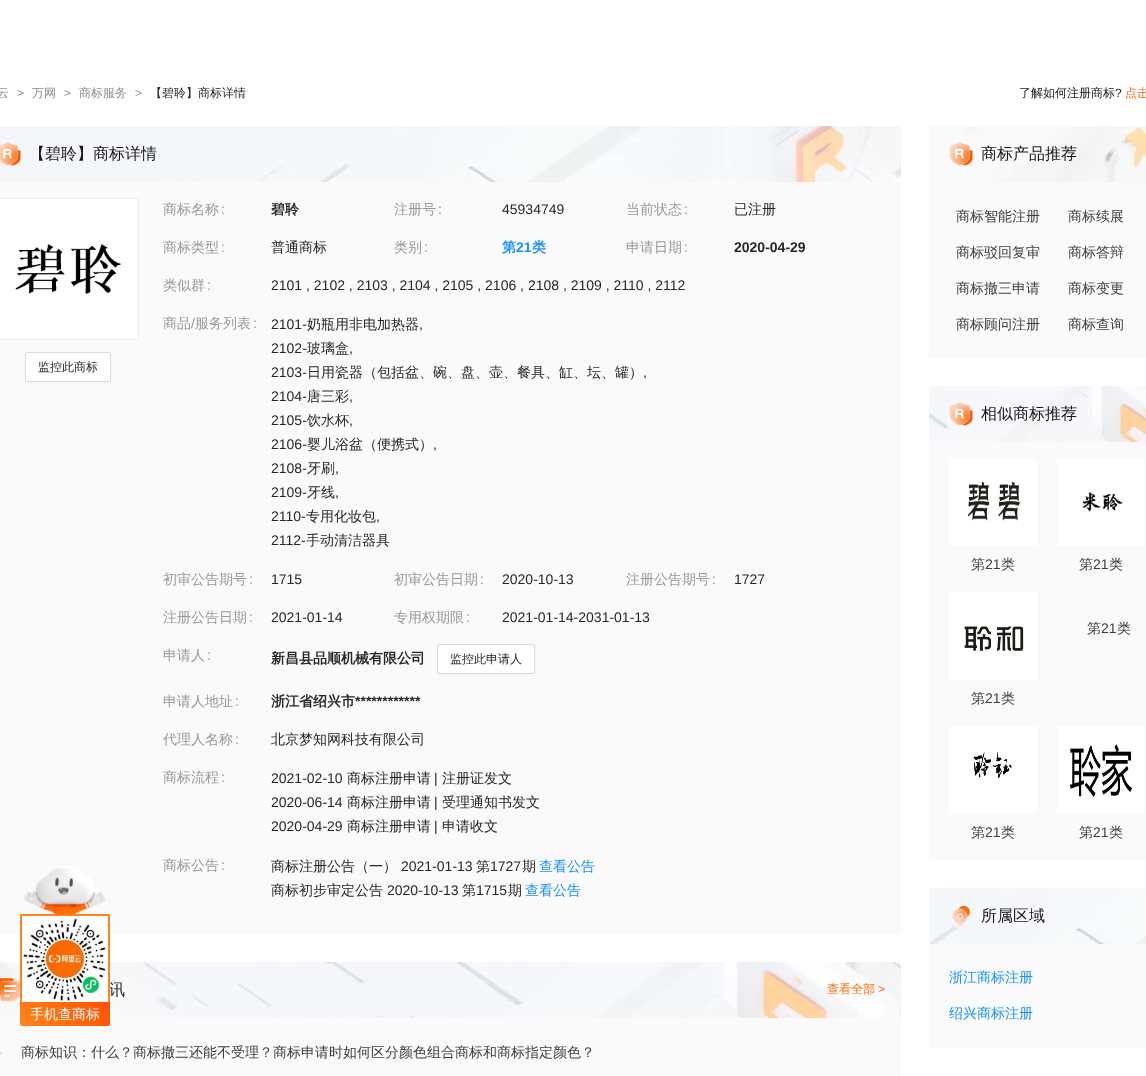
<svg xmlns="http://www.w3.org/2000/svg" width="1146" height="1076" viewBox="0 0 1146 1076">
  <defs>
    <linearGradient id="g1" gradientUnits="userSpaceOnUse" x1="37" y1="1043" x2="94" y2="986"><stop offset="0" stop-color="rgb(255,135,26)"/><stop offset="1" stop-color="rgb(255,80,0)"/></linearGradient>
  </defs>
  <rect width="100%" height="100%" fill="rgb(255,255,255)"/>
  <text x="-3" y="97" font-family="WenQuanYi Zen Hei" font-size="12" font-weight="500" fill="rgb(140,140,140)">云</text>
  <text x="17" y="97" font-family="Liberation Sans" font-size="12" fill="rgb(140,140,140)">&gt;</text>
  <text x="32" y="97" font-family="WenQuanYi Zen Hei" font-size="12" font-weight="500" fill="rgb(140,140,140)">万网</text>
  <text x="64" y="97" font-family="Liberation Sans" font-size="12" fill="rgb(140,140,140)">&gt;</text>
  <text x="79" y="97" font-family="WenQuanYi Zen Hei" font-size="12" font-weight="500" fill="rgb(140,140,140)">商标服务</text>
  <text x="135" y="97" font-family="Liberation Sans" font-size="12" fill="rgb(140,140,140)">&gt;</text>
  <text x="150" y="97" font-family="WenQuanYi Zen Hei" font-size="12" font-weight="500" fill="rgb(38,38,38)">【碧聆】商标详情</text>
  <text x="1019" y="97" font-family="WenQuanYi Zen Hei" font-size="12" font-weight="500" fill="rgb(24,24,24)">了解如何注册商标</text>
  <text x="1115" y="97" font-family="Liberation Sans" font-size="12" fill="rgb(24,24,24)">?</text>
  <text x="1125" y="97" font-family="WenQuanYi Zen Hei" font-size="12" font-weight="500" fill="rgb(255,106,0)">点击</text>
  <rect x="0" y="182" width="901" height="752" fill="rgb(250,250,250)"/>
  <image x="0" y="126" width="901" height="56" href="pic1.png"/>
  <image x="0" y="142" width="21" height="24" href="pic2.png"/>
  <text x="29" y="159" font-family="WenQuanYi Zen Hei" font-size="16" font-weight="500" fill="rgb(24,24,24)">【碧聆】商标详情</text>
  <rect x="-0.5" y="198.5" width="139" height="141" fill="none" stroke="rgb(237,237,237)"/>
  <image x="0" y="199" width="138" height="140" href="pic3.png"/>
  <path d="M25 380V382C25 383 26 384 27 384H109C110 384 111 383 111 382V380C111 381 110 382 109 382H27C26 382 25 381 25 380Z" fill="rgb(246,246,246)"/>
  <rect x="25.5" y="352.5" width="85" height="29" rx="1.5" fill="rgb(255,255,255)" stroke="rgb(217,217,217)"/>
  <text x="38" y="371" font-family="WenQuanYi Zen Hei" font-size="12" font-weight="500" fill="rgb(38,38,38)">监控此商标</text>
  <text x="163" y="214" font-family="WenQuanYi Zen Hei" font-size="14" font-weight="500" fill="rgb(153,153,153)">商标名称</text>
  <text x="221" y="214" font-family="Liberation Sans" font-size="14" fill="rgb(153,153,153)">:</text>
  <text x="271" y="214" font-family="WenQuanYi Zen Hei" font-size="14" font-weight="bold" fill="rgb(38,38,38)">碧聆</text>
  <text x="394" y="214" font-family="WenQuanYi Zen Hei" font-size="14" font-weight="500" fill="rgb(153,153,153)">注册号</text>
  <text x="438" y="214" font-family="Liberation Sans" font-size="14" fill="rgb(153,153,153)">:</text>
  <text x="502" y="214" font-family="Liberation Sans" font-size="14" fill="rgb(38,38,38)">45934749</text>
  <text x="626" y="214" font-family="WenQuanYi Zen Hei" font-size="14" font-weight="500" fill="rgb(153,153,153)">当前状态</text>
  <text x="684" y="214" font-family="Liberation Sans" font-size="14" fill="rgb(153,153,153)">:</text>
  <text x="734" y="214" font-family="WenQuanYi Zen Hei" font-size="14" font-weight="500" fill="rgb(38,38,38)">已注册</text>
  <text x="163" y="252" font-family="WenQuanYi Zen Hei" font-size="14" font-weight="500" fill="rgb(153,153,153)">商标类型</text>
  <text x="221" y="252" font-family="Liberation Sans" font-size="14" fill="rgb(153,153,153)">:</text>
  <text x="271" y="252" font-family="WenQuanYi Zen Hei" font-size="14" font-weight="500" fill="rgb(38,38,38)">普通商标</text>
  <text x="394" y="252" font-family="WenQuanYi Zen Hei" font-size="14" font-weight="500" fill="rgb(153,153,153)">类别</text>
  <text x="424" y="252" font-family="Liberation Sans" font-size="14" fill="rgb(153,153,153)">:</text>
  <text x="502" y="252" font-family="WenQuanYi Zen Hei" font-size="14" font-weight="bold" fill="rgb(24,144,255)">第</text>
  <text x="516" y="252" font-family="Liberation Sans" font-size="14" font-weight="bold" fill="rgb(24,144,255)">21</text>
  <text x="532" y="252" font-family="WenQuanYi Zen Hei" font-size="14" font-weight="bold" fill="rgb(24,144,255)">类</text>
  <text x="626" y="252" font-family="WenQuanYi Zen Hei" font-size="14" font-weight="500" fill="rgb(153,153,153)">申请日期</text>
  <text x="684" y="252" font-family="Liberation Sans" font-size="14" fill="rgb(153,153,153)">:</text>
  <text x="734" y="252" font-family="Liberation Sans" font-size="14" font-weight="bold" fill="rgb(38,38,38)">2020-04-29</text>
  <text x="163" y="290" font-family="WenQuanYi Zen Hei" font-size="14" font-weight="500" fill="rgb(153,153,153)">类似群</text>
  <text x="207" y="290" font-family="Liberation Sans" font-size="14" fill="rgb(153,153,153)">:</text>
  <text x="271" y="290" font-family="Liberation Sans" font-size="14" fill="rgb(38,38,38)">2101 , 2102 , 2103 , 2104 , 2105 , 2106 , 2108 , 2109 , 2110 , 2112</text>
  <text x="163" y="328" font-family="WenQuanYi Zen Hei" font-size="14" font-weight="500" fill="rgb(153,153,153)">商品</text>
  <text x="191" y="328" font-family="Liberation Sans" font-size="14" fill="rgb(153,153,153)">/</text>
  <text x="195" y="328" font-family="WenQuanYi Zen Hei" font-size="14" font-weight="500" fill="rgb(153,153,153)">服务列表</text>
  <text x="253" y="328" font-family="Liberation Sans" font-size="14" fill="rgb(153,153,153)">:</text>
  <text x="271" y="329" font-family="Liberation Sans" font-size="14" fill="rgb(38,38,38)">2101-</text>
  <text x="307" y="329" font-family="WenQuanYi Zen Hei" font-size="14" font-weight="500" fill="rgb(38,38,38)">奶瓶用非电加热器</text>
  <g font-family="Liberation Sans" font-size="14" fill="rgb(38,38,38)">
    <text x="419" y="329">,</text>
    <text x="271" y="353">2102-</text>
  </g>
  <text x="307" y="353" font-family="WenQuanYi Zen Hei" font-size="14" font-weight="500" fill="rgb(38,38,38)">玻璃盒</text>
  <g font-family="Liberation Sans" font-size="14" fill="rgb(38,38,38)">
    <text x="349" y="353">,</text>
    <text x="271" y="377">2103-</text>
  </g>
  <text x="307" y="377" font-family="WenQuanYi Zen Hei" font-size="14" font-weight="500" fill="rgb(38,38,38)">日用瓷器（包括盆、碗、盘、壶、餐具、缸、坛、罐）</text>
  <g font-family="Liberation Sans" font-size="14" fill="rgb(38,38,38)">
    <text x="643" y="377">,</text>
    <text x="271" y="401">2104-</text>
  </g>
  <text x="307" y="401" font-family="WenQuanYi Zen Hei" font-size="14" font-weight="500" fill="rgb(38,38,38)">唐三彩</text>
  <g font-family="Liberation Sans" font-size="14" fill="rgb(38,38,38)">
    <text x="349" y="401">,</text>
    <text x="271" y="425">2105-</text>
  </g>
  <text x="307" y="425" font-family="WenQuanYi Zen Hei" font-size="14" font-weight="500" fill="rgb(38,38,38)">饮水杯</text>
  <g font-family="Liberation Sans" font-size="14" fill="rgb(38,38,38)">
    <text x="349" y="425">,</text>
    <text x="271" y="449">2106-</text>
  </g>
  <text x="307" y="449" font-family="WenQuanYi Zen Hei" font-size="14" font-weight="500" fill="rgb(38,38,38)">婴儿浴盆（便携式）</text>
  <g font-family="Liberation Sans" font-size="14" fill="rgb(38,38,38)">
    <text x="433" y="449">,</text>
    <text x="271" y="473">2108-</text>
  </g>
  <text x="307" y="473" font-family="WenQuanYi Zen Hei" font-size="14" font-weight="500" fill="rgb(38,38,38)">牙刷</text>
  <g font-family="Liberation Sans" font-size="14" fill="rgb(38,38,38)">
    <text x="335" y="473">,</text>
    <text x="271" y="497">2109-</text>
  </g>
  <text x="307" y="497" font-family="WenQuanYi Zen Hei" font-size="14" font-weight="500" fill="rgb(38,38,38)">牙线</text>
  <g font-family="Liberation Sans" font-size="14" fill="rgb(38,38,38)">
    <text x="335" y="497">,</text>
    <text x="271" y="521">2110-</text>
  </g>
  <text x="306" y="521" font-family="WenQuanYi Zen Hei" font-size="14" font-weight="500" fill="rgb(38,38,38)">专用化妆包</text>
  <g font-family="Liberation Sans" font-size="14" fill="rgb(38,38,38)">
    <text x="376" y="521">,</text>
    <text x="271" y="545">2112-</text>
  </g>
  <text x="306" y="545" font-family="WenQuanYi Zen Hei" font-size="14" font-weight="500" fill="rgb(38,38,38)">手动清洁器具</text>
  <text x="163" y="584" font-family="WenQuanYi Zen Hei" font-size="14" font-weight="500" fill="rgb(153,153,153)">初审公告期号</text>
  <text x="249" y="584" font-family="Liberation Sans" font-size="14" fill="rgb(153,153,153)">:</text>
  <text x="271" y="584" font-family="Liberation Sans" font-size="14" fill="rgb(38,38,38)">1715</text>
  <text x="394" y="584" font-family="WenQuanYi Zen Hei" font-size="14" font-weight="500" fill="rgb(153,153,153)">初审公告日期</text>
  <text x="480" y="584" font-family="Liberation Sans" font-size="14" fill="rgb(153,153,153)">:</text>
  <text x="502" y="584" font-family="Liberation Sans" font-size="14" fill="rgb(38,38,38)">2020-10-13</text>
  <text x="626" y="584" font-family="WenQuanYi Zen Hei" font-size="14" font-weight="500" fill="rgb(153,153,153)">注册公告期号</text>
  <text x="712" y="584" font-family="Liberation Sans" font-size="14" fill="rgb(153,153,153)">:</text>
  <text x="734" y="584" font-family="Liberation Sans" font-size="14" fill="rgb(38,38,38)">1727</text>
  <text x="163" y="622" font-family="WenQuanYi Zen Hei" font-size="14" font-weight="500" fill="rgb(153,153,153)">注册公告日期</text>
  <text x="249" y="622" font-family="Liberation Sans" font-size="14" fill="rgb(153,153,153)">:</text>
  <text x="271" y="622" font-family="Liberation Sans" font-size="14" fill="rgb(38,38,38)">2021-01-14</text>
  <text x="394" y="622" font-family="WenQuanYi Zen Hei" font-size="14" font-weight="500" fill="rgb(153,153,153)">专用权期限</text>
  <text x="466" y="622" font-family="Liberation Sans" font-size="14" fill="rgb(153,153,153)">:</text>
  <text x="502" y="622" font-family="Liberation Sans" font-size="14" fill="rgb(38,38,38)">2021-01-14-2031-01-13</text>
  <text x="163" y="660" font-family="WenQuanYi Zen Hei" font-size="14" font-weight="500" fill="rgb(153,153,153)">申请人</text>
  <text x="207" y="660" font-family="Liberation Sans" font-size="14" fill="rgb(153,153,153)">:</text>
  <text x="271" y="663" font-family="WenQuanYi Zen Hei" font-size="14" font-weight="bold" fill="rgb(38,38,38)">新昌县品顺机械有限公司</text>
  <path d="M437 672V674C437 675 438 676 439 676H533C534 676 535 675 535 674V672C535 673 534 674 533 674H439C438 674 437 673 437 672Z" fill="rgb(246,246,246)"/>
  <rect x="437.5" y="644.5" width="97" height="29" rx="1.5" fill="rgb(255,255,255)" stroke="rgb(217,217,217)"/>
  <text x="450" y="663" font-family="WenQuanYi Zen Hei" font-size="12" font-weight="500" fill="rgb(38,38,38)">监控此申请人</text>
  <text x="163" y="706" font-family="WenQuanYi Zen Hei" font-size="14" font-weight="500" fill="rgb(153,153,153)">申请人地址</text>
  <text x="235" y="706" font-family="Liberation Sans" font-size="14" fill="rgb(153,153,153)">:</text>
  <text x="271" y="706" font-family="WenQuanYi Zen Hei" font-size="14" font-weight="bold" fill="rgb(38,38,38)">浙江省绍兴市</text>
  <text x="355" y="706" font-family="Liberation Sans" font-size="14" font-weight="bold" fill="rgb(38,38,38)">************</text>
  <text x="163" y="744" font-family="WenQuanYi Zen Hei" font-size="14" font-weight="500" fill="rgb(153,153,153)">代理人名称</text>
  <text x="235" y="744" font-family="Liberation Sans" font-size="14" fill="rgb(153,153,153)">:</text>
  <text x="271" y="744" font-family="WenQuanYi Zen Hei" font-size="14" font-weight="500" fill="rgb(38,38,38)">北京梦知网科技有限公司</text>
  <text x="163" y="782" font-family="WenQuanYi Zen Hei" font-size="14" font-weight="500" fill="rgb(153,153,153)">商标流程</text>
  <text x="221" y="782" font-family="Liberation Sans" font-size="14" fill="rgb(153,153,153)">:</text>
  <text x="271" y="783" font-family="Liberation Sans" font-size="14" fill="rgb(38,38,38)">2021-02-10</text>
  <text x="347" y="783" font-family="WenQuanYi Zen Hei" font-size="14" font-weight="500" fill="rgb(38,38,38)">商标注册申请</text>
  <text x="434" y="783" font-family="Liberation Sans" font-size="14" fill="rgb(38,38,38)">|</text>
  <text x="442" y="783" font-family="WenQuanYi Zen Hei" font-size="14" font-weight="500" fill="rgb(38,38,38)">注册证发文</text>
  <text x="271" y="807" font-family="Liberation Sans" font-size="14" fill="rgb(38,38,38)">2020-06-14</text>
  <text x="347" y="807" font-family="WenQuanYi Zen Hei" font-size="14" font-weight="500" fill="rgb(38,38,38)">商标注册申请</text>
  <text x="434" y="807" font-family="Liberation Sans" font-size="14" fill="rgb(38,38,38)">|</text>
  <text x="442" y="807" font-family="WenQuanYi Zen Hei" font-size="14" font-weight="500" fill="rgb(38,38,38)">受理通知书发文</text>
  <text x="271" y="831" font-family="Liberation Sans" font-size="14" fill="rgb(38,38,38)">2020-04-29</text>
  <text x="347" y="831" font-family="WenQuanYi Zen Hei" font-size="14" font-weight="500" fill="rgb(38,38,38)">商标注册申请</text>
  <text x="434" y="831" font-family="Liberation Sans" font-size="14" fill="rgb(38,38,38)">|</text>
  <text x="442" y="831" font-family="WenQuanYi Zen Hei" font-size="14" font-weight="500" fill="rgb(38,38,38)">申请收文</text>
  <text x="163" y="870" font-family="WenQuanYi Zen Hei" font-size="14" font-weight="500" fill="rgb(153,153,153)">商标公告</text>
  <text x="221" y="870" font-family="Liberation Sans" font-size="14" fill="rgb(153,153,153)">:</text>
  <text x="271" y="871" font-family="WenQuanYi Zen Hei" font-size="14" font-weight="500" fill="rgb(38,38,38)">商标注册公告（一）</text>
  <text x="401" y="871" font-family="Liberation Sans" font-size="14" fill="rgb(38,38,38)">2021-01-13</text>
  <text x="476" y="871" font-family="WenQuanYi Zen Hei" font-size="14" font-weight="500" fill="rgb(38,38,38)">第</text>
  <text x="490" y="871" font-family="Liberation Sans" font-size="14" fill="rgb(38,38,38)">1727</text>
  <text x="522" y="871" font-family="WenQuanYi Zen Hei" font-size="14" font-weight="500" fill="rgb(38,38,38)">期</text>
  <text x="539" y="871" font-family="WenQuanYi Zen Hei" font-size="14" font-weight="500" fill="rgb(24,144,255)">查看公告</text>
  <text x="271" y="895" font-family="WenQuanYi Zen Hei" font-size="14" font-weight="500" fill="rgb(38,38,38)">商标初步审定公告</text>
  <text x="387" y="895" font-family="Liberation Sans" font-size="14" fill="rgb(38,38,38)">2020-10-13</text>
  <text x="462" y="895" font-family="WenQuanYi Zen Hei" font-size="14" font-weight="500" fill="rgb(38,38,38)">第</text>
  <text x="476" y="895" font-family="Liberation Sans" font-size="14" fill="rgb(38,38,38)">1715</text>
  <text x="508" y="895" font-family="WenQuanYi Zen Hei" font-size="14" font-weight="500" fill="rgb(38,38,38)">期</text>
  <text x="525" y="895" font-family="WenQuanYi Zen Hei" font-size="14" font-weight="500" fill="rgb(24,144,255)">查看公告</text>
  <rect x="0" y="1018" width="901" height="58" fill="rgb(250,250,250)"/>
  <image x="0" y="962" width="901" height="56" href="pic4.png"/>
  <image x="0" y="978" width="20" height="24" href="pic5.png"/>
  <text x="109" y="995" font-family="WenQuanYi Zen Hei" font-size="16" font-weight="500" fill="rgb(24,24,24)">讯</text>
  <text x="827" y="993" font-family="WenQuanYi Zen Hei" font-size="12" font-weight="500" fill="rgb(255,106,0)">查看全部</text>
  <text x="878" y="993" font-family="Liberation Sans" font-size="12" fill="rgb(255,106,0)">&gt;</text>
  <circle cx="0" cy="1053" r="2" fill="rgb(228,228,228)"/>
  <text x="21" y="1057" font-family="WenQuanYi Zen Hei" font-size="14" font-weight="500" fill="rgb(61,61,61)">商标知识：什么？商标撤三还能不受理？商标申请时如何区分颜色组合商标和商标指定颜色？</text>
  <rect x="929" y="126" width="217" height="232" fill="rgb(250,250,250)"/>
  <image x="965" y="126" width="181" height="56" href="pic6.png"/>
  <image x="949" y="142" width="24" height="24" href="pic7.png"/>
  <text x="981" y="159" font-family="WenQuanYi Zen Hei" font-size="16" font-weight="500" fill="rgb(24,24,24)">商标产品推荐</text>
  <g font-family="WenQuanYi Zen Hei" font-size="14" font-weight="500" fill="rgb(61,61,61)">
    <text x="956" y="221">商标智能注册</text>
    <text x="1068" y="221">商标续展</text>
    <text x="956" y="257">商标驳回复审</text>
    <text x="1068" y="257">商标答辩</text>
    <text x="956" y="293">商标撤三申请</text>
    <text x="1068" y="293">商标变更</text>
    <text x="956" y="329">商标顾问注册</text>
    <text x="1068" y="329">商标查询</text>
  </g>
  <rect x="929" y="442" width="217" height="418" fill="rgb(250,250,250)"/>
  <image x="929" y="386" width="217" height="56" href="pic8.png"/>
  <image x="949" y="402" width="24" height="24" href="pic9.png"/>
  <text x="981" y="419" font-family="WenQuanYi Zen Hei" font-size="16" font-weight="500" fill="rgb(24,24,24)">相似商标推荐</text>
  <image x="949" y="458" width="88" height="88" href="pic10.png"/>
  <text x="971" y="569" font-family="WenQuanYi Zen Hei" font-size="14" font-weight="500" fill="rgb(61,61,61)">第</text>
  <text x="985" y="569" font-family="Liberation Sans" font-size="14" fill="rgb(61,61,61)">21</text>
  <text x="1001" y="569" font-family="WenQuanYi Zen Hei" font-size="14" font-weight="500" fill="rgb(61,61,61)">类</text>
  <image x="1057" y="458" width="88" height="88" href="pic11.png"/>
  <text x="1079" y="569" font-family="WenQuanYi Zen Hei" font-size="14" font-weight="500" fill="rgb(61,61,61)">第</text>
  <text x="1093" y="569" font-family="Liberation Sans" font-size="14" fill="rgb(61,61,61)">21</text>
  <g font-family="WenQuanYi Zen Hei" font-size="14" font-weight="500" fill="rgb(61,61,61)">
    <text x="1109" y="569">类</text>
    <text x="1087" y="633">第</text>
  </g>
  <text x="1101" y="633" font-family="Liberation Sans" font-size="14" fill="rgb(61,61,61)">21</text>
  <text x="1117" y="633" font-family="WenQuanYi Zen Hei" font-size="14" font-weight="500" fill="rgb(61,61,61)">类</text>
  <image x="949" y="592" width="88" height="88" href="pic12.png"/>
  <text x="971" y="703" font-family="WenQuanYi Zen Hei" font-size="14" font-weight="500" fill="rgb(61,61,61)">第</text>
  <text x="985" y="703" font-family="Liberation Sans" font-size="14" fill="rgb(61,61,61)">21</text>
  <text x="1001" y="703" font-family="WenQuanYi Zen Hei" font-size="14" font-weight="500" fill="rgb(61,61,61)">类</text>
  <image x="949" y="726" width="88" height="88" href="pic13.png"/>
  <text x="971" y="837" font-family="WenQuanYi Zen Hei" font-size="14" font-weight="500" fill="rgb(61,61,61)">第</text>
  <text x="985" y="837" font-family="Liberation Sans" font-size="14" fill="rgb(61,61,61)">21</text>
  <text x="1001" y="837" font-family="WenQuanYi Zen Hei" font-size="14" font-weight="500" fill="rgb(61,61,61)">类</text>
  <image x="1057" y="726" width="88" height="88" href="pic14.png"/>
  <text x="1079" y="837" font-family="WenQuanYi Zen Hei" font-size="14" font-weight="500" fill="rgb(61,61,61)">第</text>
  <text x="1093" y="837" font-family="Liberation Sans" font-size="14" fill="rgb(61,61,61)">21</text>
  <text x="1109" y="837" font-family="WenQuanYi Zen Hei" font-size="14" font-weight="500" fill="rgb(61,61,61)">类</text>
  <rect x="929" y="944" width="217" height="104" fill="rgb(250,250,250)"/>
  <image x="929" y="888" width="217" height="56" href="pic15.png"/>
  <image x="952" y="905" width="18" height="22" href="pic16.png"/>
  <text x="981" y="921" font-family="WenQuanYi Zen Hei" font-size="16" font-weight="500" fill="rgb(24,24,24)">所属区域</text>
  <g font-family="WenQuanYi Zen Hei" font-size="14" font-weight="500" fill="rgb(24,144,255)">
    <text x="949" y="982">浙江商标注册</text>
    <text x="949" y="1018">绍兴商标注册</text>
  </g>
  <image x="24" y="866" width="82" height="48" href="pic17.png"/>
  <path d="M22 915H108C108.5 915 109 915.5 109 916V1003H21V916C21 915.5 21.5 915 22 915Z" fill="none" stroke="rgb(255,131,25)" stroke-width="2"/>
  <image x="22" y="916" width="86" height="86" href="pic18.png"/>
  <rect x="20" y="1002" width="90" height="24" rx="2" fill="url(#g1)"/>
  <text x="30" y="1019" font-family="WenQuanYi Zen Hei" font-size="14" font-weight="500" fill="rgb(255,255,255)">手机查商标</text>
</svg>
